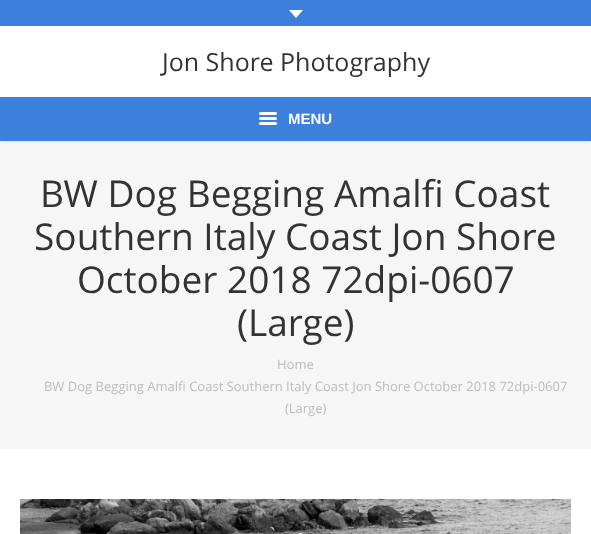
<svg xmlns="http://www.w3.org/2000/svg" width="591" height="534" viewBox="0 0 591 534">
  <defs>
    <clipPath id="clip1"><rect x="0" y="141" width="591" height="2"/></clipPath>
  </defs>
  <rect width="100%" height="100%" fill="rgb(255,255,255)"/>
  <rect x="0" y="141" width="591" height="308" fill="rgb(246,246,246)"/>
  <g clip-path="url(#clip1)">
    <rect x="0" y="-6" width="591" height="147" fill="rgba(0,0,0,0.15)" filter="blur(2px)"/>
  </g>
  <rect x="0" y="0" width="591" height="26" fill="rgb(61,128,220)"/>
  <path d="M289 10H303L296 18Z" fill="rgb(255,255,255)"/>
  <text x="162" y="71" font-family="Open Sans" font-size="25" fill="rgb(51,51,51)">Jon Shore Photography</text>
  <rect x="0" y="97" width="591" height="44" fill="rgb(61,128,220)"/>
  <rect x="259" y="117" width="18" height="3" rx="1.5" fill="rgb(255,255,255)"/>
  <rect x="259" y="112" width="18" height="3" rx="1.5" fill="rgb(255,255,255)"/>
  <rect x="259" y="122" width="18" height="3" rx="1.5" fill="rgb(255,255,255)"/>
  <text x="288" y="124" font-family="Liberation Sans" font-size="15" font-weight="bold" fill="rgb(255,255,255)">MENU</text>
  <g font-family="Open Sans" font-size="37" fill="rgb(51,51,51)">
    <text x="40" y="207">BW Dog Begging Amalfi Coast</text>
    <text x="34" y="250">Southern Italy Coast Jon Shore</text>
    <text x="77" y="293">October 2018 72dpi-0607</text>
    <text x="237" y="336">(Large)</text>
  </g>
  <g font-family="Open Sans" font-size="13" fill="rgb(188,188,188)">
    <text x="277" y="369">Home</text>
    <text x="44" y="391">BW Dog Begging Amalfi Coast Southern Italy Coast Jon Shore October 2018 72dpi-0607</text>
    <text x="285" y="413">(Large)</text>
  </g>
  <image x="20" y="499" width="551" height="35" href="pic1.png"/>
</svg>
